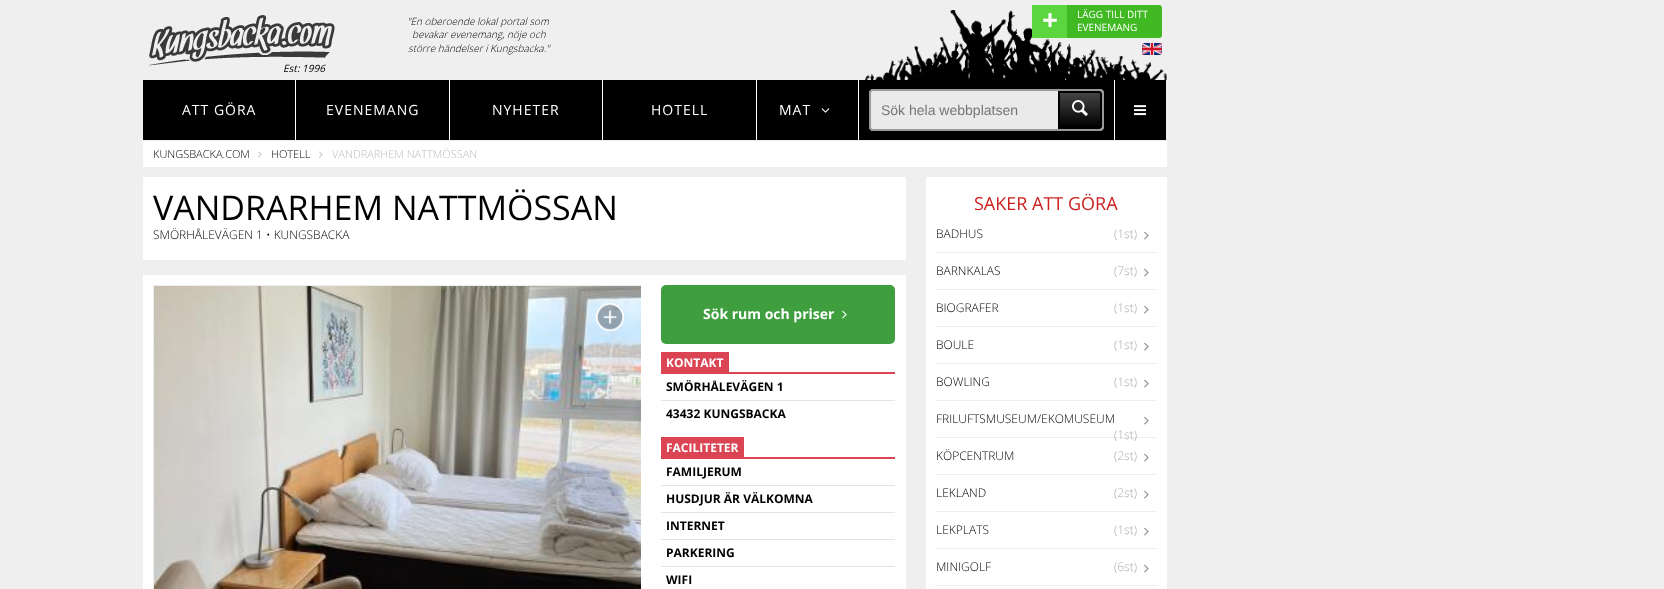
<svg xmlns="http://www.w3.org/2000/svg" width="1664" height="589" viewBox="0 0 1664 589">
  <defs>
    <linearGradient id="g1" gradientUnits="userSpaceOnUse" x1="1080" y1="93" x2="1080" y2="127"><stop offset="0" stop-color="rgb(68,68,68)"/><stop offset="1" stop-color="rgb(0,0,0)"/></linearGradient>
  </defs>
  <rect width="100%" height="100%" fill="rgb(239,239,239)"/>
  <g font-family="Open Sans" font-size="10" font-weight="300" font-style="italic" fill="rgb(0,0,0)">
    <text x="407" y="25">"En oberoende lokal portal som</text>
    <text x="412" y="38">bevakar evenemang, nöje och</text>
    <text x="408" y="52">större händelser i Kungsbacka."</text>
  </g>
  <image x="865" y="10" width="302" height="70" href="pic1.png"/>
  <text x="283" y="72" font-family="Open Sans" font-size="10" font-style="italic" fill="rgb(0,0,0)">Est: 1996</text>
  <image x="148" y="15" width="187" height="51" href="pic2.png"/>
  <rect x="1032" y="5" width="130" height="33" rx="3" fill="rgb(64,185,34)"/>
  <rect x="1032" y="5" width="35" height="33" fill="rgb(92,214,62)"/>
  <text x="1042" y="30" font-family="Open Sans" font-size="28" font-weight="bold" fill="rgb(255,255,255)">+</text>
  <g font-family="Open Sans" font-size="10" fill="rgb(255,255,255)">
    <text>
      <tspan x="1077" y="18">LÄGG TILL DITT</tspan>
      <tspan x="1077" y="31">EVENEMANG</tspan>
    </text>
  </g>
  <image x="1142" y="43" width="20" height="12" href="pic3.png"/>
  <rect x="143" y="80" width="152" height="60" fill="rgb(0,0,0)"/>
  <rect x="295" y="80" width="1" height="60" fill="rgb(255,255,255)"/>
  <text x="182" y="115" font-family="Open Sans" font-size="14" letter-spacing="1" fill="rgb(255,255,255)">ATT GÖRA</text>
  <rect x="296" y="80" width="153" height="60" fill="rgb(0,0,0)"/>
  <rect x="449" y="80" width="1" height="60" fill="rgb(255,255,255)"/>
  <text x="326" y="115" font-family="Open Sans" font-size="14" letter-spacing="1" fill="rgb(255,255,255)">EVENEMANG</text>
  <rect x="450" y="80" width="152" height="60" fill="rgb(0,0,0)"/>
  <rect x="602" y="80" width="1" height="60" fill="rgb(255,255,255)"/>
  <text x="492" y="115" font-family="Open Sans" font-size="14" letter-spacing="1" fill="rgb(255,255,255)">NYHETER</text>
  <rect x="603" y="80" width="153" height="60" fill="rgb(0,0,0)"/>
  <rect x="756" y="80" width="1" height="60" fill="rgb(255,255,255)"/>
  <text x="651" y="115" font-family="Open Sans" font-size="14" letter-spacing="1" fill="rgb(255,255,255)">HOTELL</text>
  <rect x="757" y="80" width="101" height="60" fill="rgb(0,0,0)"/>
  <rect x="858" y="80" width="1" height="60" fill="rgb(255,255,255)"/>
  <text x="779" y="115" font-family="Open Sans" font-size="14" letter-spacing="1" fill="rgb(255,255,255)">MAT</text>
  <image x="821" y="108" width="9" height="5" href="pic4.png"/>
  <rect x="859" y="80" width="255" height="60" fill="rgb(0,0,0)"/>
  <rect x="1114" y="80" width="1" height="60" fill="rgb(255,255,255)"/>
  <path d="M873 89H1058V131H873C871 131 869 129 869 127V93C869 91 871 89 873 89Z" fill="rgb(234,234,234)"/>
  <path d="M873 89H1058V131H873C871 131 869 129 869 127V93C869 91 871 89 873 89ZM873 91H1058V129H873C872 129 871 128 871 127V93C871 92 872 91 873 91Z" fill="rgb(153,153,153)" fill-rule="evenodd"/>
  <text x="881" y="115" font-family="Liberation Sans" font-size="14" fill="rgb(117,117,117)">Sök hela webbplatsen</text>
  <path d="M1058 89H1100C1102 89 1104 91 1104 93V127C1104 129 1102 131 1100 131H1058Z" fill="rgb(234,234,234)"/>
  <path d="M1058 89H1100C1102 89 1104 91 1104 93V127C1104 129 1102 131 1100 131H1058ZM1058 91H1100C1101 91 1102 92 1102 93V127C1102 128 1101 129 1100 129H1058Z" fill="rgb(153,153,153)" fill-rule="evenodd"/>
  <rect x="1060" y="93" width="42" height="34" fill="url(#g1)"/>
  <path d="M1059 92H1099C1100 92 1101 93 1101 94V126C1101 127 1100 128 1099 128H1059Z" fill="none" stroke="rgb(0,0,0)" stroke-width="2"/>
  <image x="1072" y="100" width="16" height="16" href="pic5.png"/>
  <rect x="1115" y="80" width="51" height="60" fill="rgb(0,0,0)"/>
  <image x="1134" y="105" width="12" height="11" href="pic6.png"/>
  <rect x="143" y="141" width="1024" height="26" fill="rgb(255,255,255)"/>
  <text x="153" y="158" font-family="Open Sans" font-size="11" font-weight="300" fill="rgb(0,0,0)">KUNGSBACKA.COM</text>
  <image x="258" y="151" width="4" height="7" href="pic7.png"/>
  <text x="271" y="158" font-family="Open Sans" font-size="11" font-weight="300" fill="rgb(0,0,0)">HOTELL</text>
  <image x="319" y="151" width="4" height="7" href="pic7.png"/>
  <text x="332" y="158" font-family="Open Sans" font-size="11" font-weight="300" fill="rgb(187,187,187)">VANDRARHEM NATTMÖSSAN</text>
  <rect x="143" y="177" width="763" height="83" fill="rgb(255,255,255)"/>
  <text x="153" y="220" font-family="Open Sans" font-size="34" fill="rgb(0,0,0)">VANDRARHEM NATTMÖSSAN</text>
  <text x="153" y="239" font-family="Open Sans" font-size="12" font-weight="300" fill="rgb(0,0,0)">SMÖRHÅLEVÄGEN 1 • KUNGSBACKA</text>
  <rect x="143" y="275" width="763" height="314" fill="rgb(255,255,255)"/>
  <rect x="153" y="285" width="488" height="1" fill="rgb(237,237,237)"/>
  <rect x="153" y="285" width="1" height="304" fill="rgb(237,237,237)"/>
  <image x="154" y="286" width="487" height="303" href="pic8.png"/>
  <image x="596" y="302" width="28" height="30" href="pic9.png"/>
  <rect x="661" y="285" width="234" height="59" rx="5" fill="rgb(63,159,63)"/>
  <text x="703" y="319" font-family="Open Sans" font-size="14" font-weight="bold" fill="rgb(255,255,255)">Sök rum och priser</text>
  <image x="842" y="310" width="5" height="9" href="pic10.png"/>
  <rect x="661" y="372" width="234" height="2" fill="rgb(218,68,83)"/>
  <rect x="661" y="352" width="68" height="20" fill="rgb(218,68,83)"/>
  <text x="666" y="367" font-family="Open Sans" font-size="12" font-weight="bold" fill="rgb(255,255,255)">KONTAKT</text>
  <rect x="661" y="400" width="234" height="1" fill="rgb(229,229,229)"/>
  <g font-family="Open Sans" font-size="12" font-weight="bold" fill="rgb(0,0,0)">
    <text x="666" y="391">SMÖRHÅLEVÄGEN 1</text>
    <text x="666" y="418">43432 KUNGSBACKA</text>
  </g>
  <rect x="661" y="457" width="234" height="2" fill="rgb(218,68,83)"/>
  <rect x="661" y="437" width="83" height="20" fill="rgb(218,68,83)"/>
  <text x="666" y="452" font-family="Open Sans" font-size="12" font-weight="bold" fill="rgb(255,255,255)">FACILITETER</text>
  <rect x="661" y="485" width="234" height="1" fill="rgb(229,229,229)"/>
  <text x="666" y="476" font-family="Open Sans" font-size="12" font-weight="bold" fill="rgb(0,0,0)">FAMILJERUM</text>
  <rect x="661" y="512" width="234" height="1" fill="rgb(229,229,229)"/>
  <text x="666" y="503" font-family="Open Sans" font-size="12" font-weight="bold" fill="rgb(0,0,0)">HUSDJUR ÄR VÄLKOMNA</text>
  <rect x="661" y="539" width="234" height="1" fill="rgb(229,229,229)"/>
  <text x="666" y="530" font-family="Open Sans" font-size="12" font-weight="bold" fill="rgb(0,0,0)">INTERNET</text>
  <rect x="661" y="566" width="234" height="1" fill="rgb(229,229,229)"/>
  <g font-family="Open Sans" font-size="12" font-weight="bold" fill="rgb(0,0,0)">
    <text x="666" y="557">PARKERING</text>
    <text x="666" y="584">WIFI</text>
  </g>
  <rect x="926" y="177" width="241" height="412" fill="rgb(255,255,255)"/>
  <text x="974" y="210" font-family="Open Sans" font-size="18" fill="rgb(205,32,31)">SAKER ATT GÖRA</text>
  <rect x="936" y="252" width="221" height="1" fill="rgb(238,238,238)"/>
  <text x="936" y="238" font-family="Open Sans" font-size="12" font-weight="300" fill="rgb(0,0,0)">BADHUS</text>
  <text x="1114" y="238" font-family="Open Sans" font-size="12" font-weight="300" fill="rgb(170,170,170)">(1st)</text>
  <image x="1144" y="231" width="5" height="9" href="pic11.png"/>
  <rect x="936" y="289" width="221" height="1" fill="rgb(238,238,238)"/>
  <text x="936" y="275" font-family="Open Sans" font-size="12" font-weight="300" fill="rgb(0,0,0)">BARNKALAS</text>
  <text x="1114" y="275" font-family="Open Sans" font-size="12" font-weight="300" fill="rgb(170,170,170)">(7st)</text>
  <image x="1144" y="268" width="5" height="9" href="pic11.png"/>
  <rect x="936" y="326" width="221" height="1" fill="rgb(238,238,238)"/>
  <text x="936" y="312" font-family="Open Sans" font-size="12" font-weight="300" fill="rgb(0,0,0)">BIOGRAFER</text>
  <text x="1114" y="312" font-family="Open Sans" font-size="12" font-weight="300" fill="rgb(170,170,170)">(1st)</text>
  <image x="1144" y="305" width="5" height="9" href="pic11.png"/>
  <rect x="936" y="363" width="221" height="1" fill="rgb(238,238,238)"/>
  <text x="936" y="349" font-family="Open Sans" font-size="12" font-weight="300" fill="rgb(0,0,0)">BOULE</text>
  <text x="1114" y="349" font-family="Open Sans" font-size="12" font-weight="300" fill="rgb(170,170,170)">(1st)</text>
  <image x="1144" y="342" width="5" height="9" href="pic11.png"/>
  <rect x="936" y="400" width="221" height="1" fill="rgb(238,238,238)"/>
  <text x="936" y="386" font-family="Open Sans" font-size="12" font-weight="300" fill="rgb(0,0,0)">BOWLING</text>
  <text x="1114" y="386" font-family="Open Sans" font-size="12" font-weight="300" fill="rgb(170,170,170)">(1st)</text>
  <image x="1144" y="379" width="5" height="9" href="pic11.png"/>
  <rect x="936" y="437" width="221" height="1" fill="rgb(238,238,238)"/>
  <text x="936" y="423" font-family="Open Sans" font-size="12" font-weight="300" fill="rgb(0,0,0)">FRILUFTSMUSEUM/EKOMUSEUM</text>
  <image x="1144" y="416" width="5" height="9" href="pic11.png"/>
  <text x="1114" y="439" font-family="Open Sans" font-size="12" font-weight="300" fill="rgb(170,170,170)">(1st)</text>
  <rect x="936" y="474" width="221" height="1" fill="rgb(238,238,238)"/>
  <text x="936" y="460" font-family="Open Sans" font-size="12" font-weight="300" fill="rgb(0,0,0)">KÖPCENTRUM</text>
  <text x="1114" y="460" font-family="Open Sans" font-size="12" font-weight="300" fill="rgb(170,170,170)">(2st)</text>
  <image x="1144" y="453" width="5" height="9" href="pic11.png"/>
  <rect x="936" y="511" width="221" height="1" fill="rgb(238,238,238)"/>
  <text x="936" y="497" font-family="Open Sans" font-size="12" font-weight="300" fill="rgb(0,0,0)">LEKLAND</text>
  <text x="1114" y="497" font-family="Open Sans" font-size="12" font-weight="300" fill="rgb(170,170,170)">(2st)</text>
  <image x="1144" y="490" width="5" height="9" href="pic11.png"/>
  <rect x="936" y="548" width="221" height="1" fill="rgb(238,238,238)"/>
  <text x="936" y="534" font-family="Open Sans" font-size="12" font-weight="300" fill="rgb(0,0,0)">LEKPLATS</text>
  <text x="1114" y="534" font-family="Open Sans" font-size="12" font-weight="300" fill="rgb(170,170,170)">(1st)</text>
  <image x="1144" y="527" width="5" height="9" href="pic11.png"/>
  <rect x="936" y="585" width="221" height="1" fill="rgb(238,238,238)"/>
  <text x="936" y="571" font-family="Open Sans" font-size="12" font-weight="300" fill="rgb(0,0,0)">MINIGOLF</text>
  <text x="1114" y="571" font-family="Open Sans" font-size="12" font-weight="300" fill="rgb(170,170,170)">(6st)</text>
  <image x="1144" y="564" width="5" height="9" href="pic11.png"/>
</svg>
